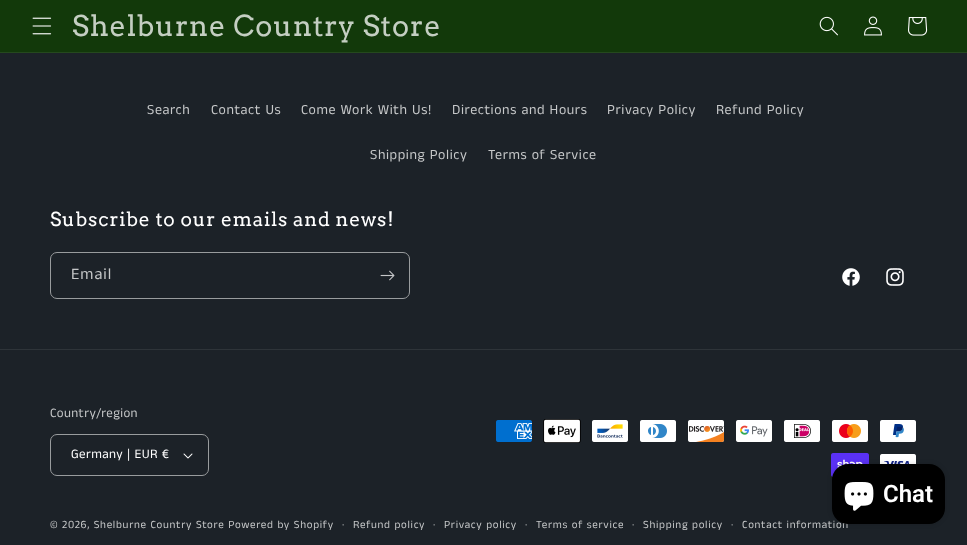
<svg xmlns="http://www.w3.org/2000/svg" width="967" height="545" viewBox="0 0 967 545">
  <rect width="100%" height="100%" fill="rgb(28,34,40)"/>
  <rect x="0" y="0" width="967" height="52" fill="rgb(18,57,10)"/>
  <rect x="0" y="52" width="967" height="1" fill="rgb(37,73,30)"/>
  <image x="32" y="17" width="20" height="18" href="pic1.png"/>
  <text x="72" y="36" font-family="Arvo" font-size="28.75" letter-spacing="0.75" fill="rgb(196,206,194)">Shelburne Country Store</text>
  <image x="819" y="16" width="19" height="20" href="pic2.png"/>
  <image x="864" y="16" width="18" height="20" href="pic3.png"/>
  <image x="908" y="17" width="20" height="19" href="pic4.png"/>
  <g font-family="Anek Tamil" font-size="14" letter-spacing="0.6" fill="rgb(198,200,201)">
    <text x="147" y="114">Search</text>
    <text x="211" y="114">Contact Us</text>
    <text x="301" y="114">Come Work With Us!</text>
    <text x="452" y="114">Directions and Hours</text>
    <text x="607" y="114">Privacy Policy</text>
    <text x="716" y="114">Refund Policy</text>
    <text x="370" y="159">Shipping Policy</text>
    <text x="488" y="159">Terms of Service</text>
  </g>
  <text x="50" y="226" font-family="Arvo" font-size="19.25" letter-spacing="0.75" fill="rgb(255,255,255)">Subscribe to our emails and news!</text>
  <rect x="50.5" y="252.5" width="359" height="46" rx="6.5" fill="none" stroke="rgb(153,156,158)"/>
  <text x="71" y="279" font-family="Anek Tamil" font-size="16" letter-spacing="1" fill="rgb(198,200,201)">Email</text>
  <image x="380" y="270" width="15" height="11" href="pic5.png"/>
  <image x="842" y="268" width="18" height="18" href="pic6.png"/>
  <image x="886" y="268" width="18" height="18" href="pic7.png"/>
  <rect x="0" y="349" width="967" height="1" fill="rgb(46,52,57)"/>
  <text x="50" y="417" font-family="Anek Tamil" font-size="13" letter-spacing="0.4" fill="rgb(198,200,201)">Country/region</text>
  <image x="183" y="453" width="10" height="6" href="pic8.png"/>
  <rect x="50.5" y="434.5" width="158" height="41" rx="6.5" fill="none" stroke="rgb(153,156,158)"/>
  <text x="71" y="458" font-family="Anek Tamil" font-size="13" letter-spacing="0.4" fill="rgb(255,255,255)">Germany | EUR €</text>
  <image x="496" y="420" width="36" height="22" href="pic9.png"/>
  <image x="543" y="419" width="38" height="24" href="pic10.png"/>
  <image x="592" y="420" width="36" height="22" href="pic11.png"/>
  <image x="640" y="420" width="36" height="22" href="pic12.png"/>
  <image x="688" y="420" width="36" height="22" href="pic13.png"/>
  <image x="736" y="420" width="36" height="22" href="pic14.png"/>
  <image x="784" y="420" width="36" height="22" href="pic15.png"/>
  <image x="832" y="420" width="36" height="22" href="pic16.png"/>
  <image x="880" y="420" width="36" height="22" href="pic17.png"/>
  <image x="831" y="453" width="38" height="24" href="pic18.png"/>
  <image x="880" y="454" width="36" height="10" href="pic19.png"/>
  <text x="50" y="528" font-family="Anek Tamil" font-size="11" letter-spacing="0.7" fill="rgb(198,200,201)">© 2026, Shelburne Country Store Powered by Shopify</text>
  <text x="342" y="528" font-family="Anek Tamil" font-size="12" letter-spacing="0.7" fill="rgb(198,200,201)">·</text>
  <text x="353" y="528" font-family="Anek Tamil" font-size="11" letter-spacing="0.7" fill="rgb(198,200,201)">Refund policy</text>
  <text x="433" y="528" font-family="Anek Tamil" font-size="12" letter-spacing="0.7" fill="rgb(198,200,201)">·</text>
  <text x="444" y="528" font-family="Anek Tamil" font-size="11" letter-spacing="0.7" fill="rgb(198,200,201)">Privacy policy</text>
  <text x="525" y="528" font-family="Anek Tamil" font-size="12" letter-spacing="0.7" fill="rgb(198,200,201)">·</text>
  <text x="536" y="528" font-family="Anek Tamil" font-size="11" letter-spacing="0.7" fill="rgb(198,200,201)">Terms of service</text>
  <text x="632" y="528" font-family="Anek Tamil" font-size="12" letter-spacing="0.7" fill="rgb(198,200,201)">·</text>
  <text x="643" y="528" font-family="Anek Tamil" font-size="11" letter-spacing="0.7" fill="rgb(198,200,201)">Shipping policy</text>
  <text x="731" y="528" font-family="Anek Tamil" font-size="12" letter-spacing="0.7" fill="rgb(198,200,201)">·</text>
  <text x="742" y="528" font-family="Anek Tamil" font-size="11" letter-spacing="0.7" fill="rgb(198,200,201)">Contact information</text>
  <rect x="832" y="464" width="113" height="60" rx="16" fill="rgba(0,0,0,0.15)" filter="blur(2.5px)"/>
  <rect x="832" y="464" width="113" height="60" rx="16" fill="rgb(0,0,0)"/>
  <image x="844" y="482" width="30" height="29" href="pic20.png"/>
  <text x="883" y="502" font-family="Roboto" font-size="24" font-weight="600" fill="rgb(255,255,255)">Chat</text>
</svg>
